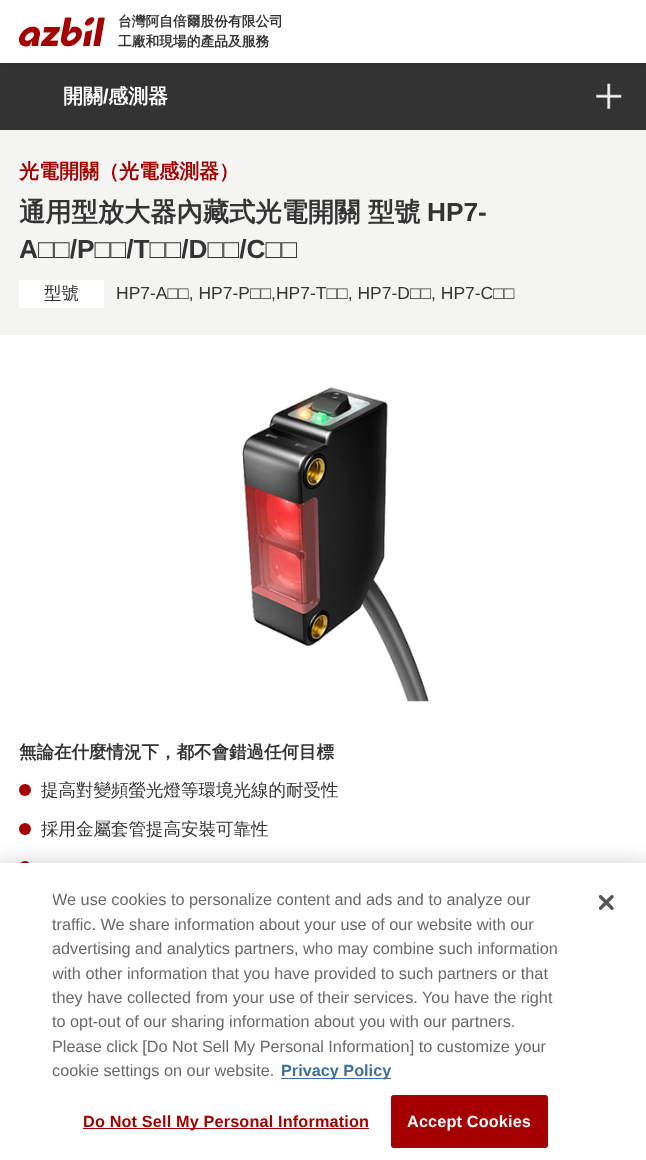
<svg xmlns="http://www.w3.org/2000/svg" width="646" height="1160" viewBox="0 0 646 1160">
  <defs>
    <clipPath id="clip1"><rect x="53" y="888" width="512" height="195"/></clipPath>
  </defs>
  <rect width="100%" height="100%" fill="rgb(255,255,255)"/>
  <rect x="0" y="63" width="646" height="67" fill="rgb(51,51,51)"/>
  <rect x="0" y="1" width="646" height="63" fill="rgba(0,15,30,0.1)" filter="blur(2.5px)"/>
  <rect x="0" y="0" width="646" height="63" fill="rgb(255,255,255)"/>
  <image x="19" y="17" width="86" height="30" href="pic1.png"/>
  <g font-family="WenQuanYi Zen Hei" font-size="13.75" font-weight="bold" fill="rgb(51,51,51)">
    <text>
      <tspan x="118" y="26">台灣阿自倍爾股份有限公司</tspan>
      <tspan x="118" y="46">工廠和現場的產品及服務</tspan>
    </text>
  </g>
  <text x="63" y="103" font-family="WenQuanYi Zen Hei" font-size="20" font-weight="bold" fill="rgb(255,255,255)">開關</text>
  <text x="103" y="103" font-family="Liberation Sans" font-size="20" font-weight="bold" fill="rgb(255,255,255)">/</text>
  <text x="108" y="103" font-family="WenQuanYi Zen Hei" font-size="20" font-weight="bold" fill="rgb(255,255,255)">感測器</text>
  <image x="596" y="83" width="26" height="26" href="pic2.png"/>
  <rect x="0" y="130" width="646" height="205" fill="rgb(244,244,243)"/>
  <text x="19" y="178" font-family="WenQuanYi Zen Hei" font-size="20" font-weight="bold" fill="rgb(165,0,0)">光電開關（光電感測器）</text>
  <text x="19" y="221" font-family="WenQuanYi Zen Hei" font-size="26.25" font-weight="bold" fill="rgb(51,51,51)">通用型放大器內藏式光電開關 型號</text>
  <g font-family="Liberation Sans" font-size="26.25" font-weight="bold" fill="rgb(51,51,51)">
    <text x="427" y="221">HP7-</text>
    <text x="19" y="258">A□□/P□□/T□□/D□□/C□□</text>
  </g>
  <rect x="19" y="280" width="85" height="28" fill="rgb(255,255,255)"/>
  <text x="44" y="299" font-family="WenQuanYi Zen Hei" font-size="17.5" font-weight="500" fill="rgb(51,51,51)">型號</text>
  <text x="116" y="299" font-family="Liberation Sans" font-size="17.5" fill="rgb(51,51,51)">HP7-A□□, HP7-P□□,HP7-T□□, HP7-D□□, HP7-C□□</text>
  <image x="242" y="387" width="187" height="315" href="pic3.png"/>
  <text x="19" y="758" font-family="WenQuanYi Zen Hei" font-size="17.5" font-weight="bold" fill="rgb(51,51,51)">無論在什麼情況下，都不會錯過任何目標</text>
  <circle cx="25" cy="790" r="6" fill="rgb(165,0,0)"/>
  <text x="41" y="796" font-family="WenQuanYi Zen Hei" font-size="17.5" font-weight="500" fill="rgb(51,51,51)">提高對變頻螢光燈等環境光線的耐受性</text>
  <circle cx="25" cy="829" r="6" fill="rgb(165,0,0)"/>
  <text x="41" y="835" font-family="WenQuanYi Zen Hei" font-size="17.5" font-weight="500" fill="rgb(51,51,51)">採用金屬套管提高安裝可靠性</text>
  <rect x="19" y="861" width="12" height="13" rx="6" fill="rgb(165,0,0)"/>
  <rect x="0" y="863" width="646" height="297" fill="rgba(0,0,0,0.2)" filter="blur(11px)"/>
  <rect x="0" y="863" width="646" height="297" fill="rgb(255,255,255)"/>
  <g clip-path="url(#clip1)">
    <text x="52" y="905" font-family="Liberation Sans" font-size="16.25" fill="rgb(105,105,105)">We use cookies to personalize content and ads and to analyze our</text>
  </g>
  <g font-family="Liberation Sans" font-size="16.25" fill="rgb(105,105,105)">
    <text>
      <tspan x="52" y="930">traffic. We share information about your use of our website with our</tspan>
      <tspan x="52" y="954">advertising and analytics partners, who may combine such information</tspan>
    </text>
  </g>
  <g clip-path="url(#clip1)">
    <text x="52" y="979" font-family="Liberation Sans" font-size="16.25" fill="rgb(105,105,105)">with other information that you have provided to such partners or that</text>
  </g>
  <g font-family="Liberation Sans" font-size="16.25" fill="rgb(105,105,105)">
    <text>
      <tspan x="52" y="1003">they have collected from your use of their services. You have the right</tspan>
      <tspan x="52" y="1027">to opt-out of our sharing information about you with our partners.</tspan>
      <tspan x="52" y="1052">Please click [Do Not Sell My Personal Information] to customize your</tspan>
      <tspan x="52" y="1076">cookie settings on our website.</tspan>
    </text>
  </g>
  <rect x="281" y="1078" width="110" height="1" fill="rgb(60,110,160)"/>
  <text x="281" y="1076" font-family="Liberation Sans" font-size="16.25" font-weight="bold" fill="rgb(60,110,160)">Privacy Policy</text>
  <rect x="83" y="1128" width="286" height="1" fill="rgb(165,0,0)"/>
  <text x="83" y="1127" font-family="Liberation Sans" font-size="16.25" font-weight="bold" letter-spacing="0.15" fill="rgb(165,0,0)">Do Not Sell My Personal Information</text>
  <rect x="391.5" y="1095.5" width="156" height="52" rx="2" fill="rgb(165,0,0)" stroke="rgb(165,0,0)"/>
  <text x="407" y="1127" font-family="Liberation Sans" font-size="16.25" font-weight="bold" letter-spacing="0.15" fill="rgb(255,255,255)">Accept Cookies</text>
  <image x="599" y="895" width="15" height="15" href="pic4.png"/>
</svg>
